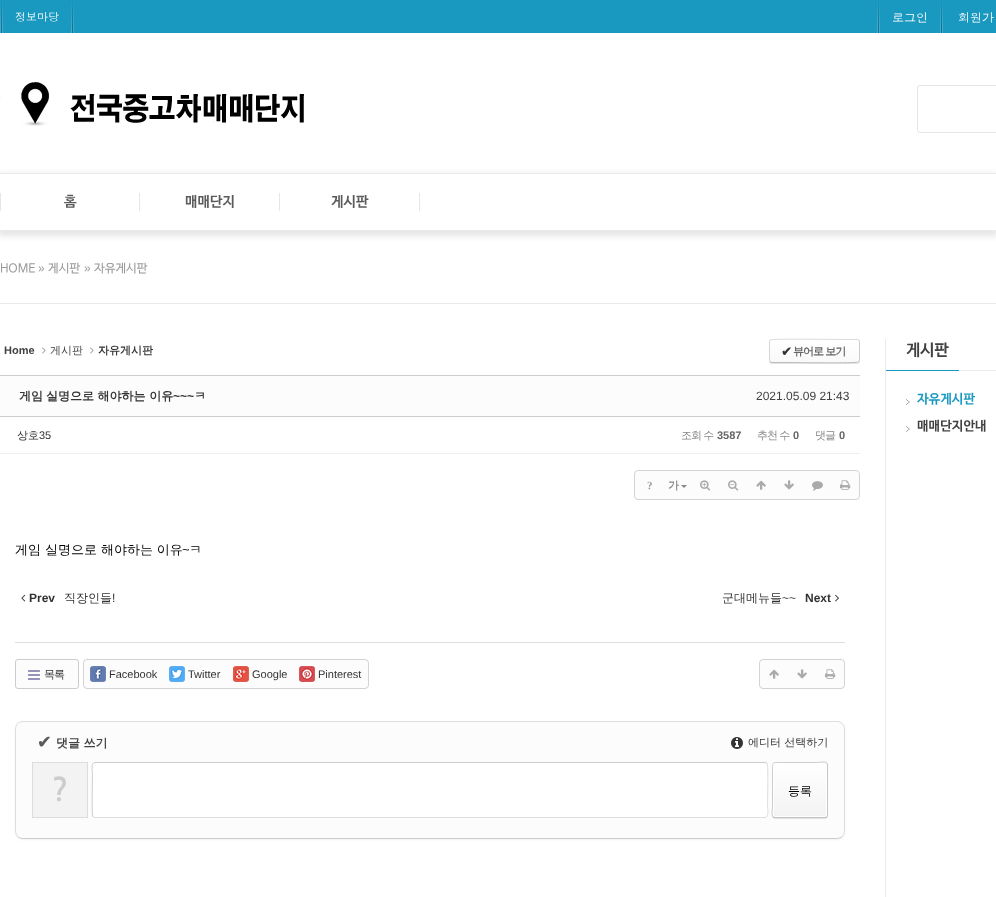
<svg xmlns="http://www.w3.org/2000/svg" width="996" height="897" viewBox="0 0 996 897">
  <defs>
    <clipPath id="clip1"><path d="M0 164H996V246H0ZM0 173H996V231H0Z" clip-rule="evenodd"/></clipPath>
    <clipPath id="clip2"><rect x="769" y="339" width="91" height="24" rx="3"/></clipPath>
    <linearGradient id="g1" gradientUnits="userSpaceOnUse" x1="815" y1="318" x2="815" y2="340"><stop offset="0" stop-color="rgb(255,255,255)"/><stop offset="1" stop-color="rgb(249,249,249)"/></linearGradient>
    <linearGradient id="g2" gradientUnits="userSpaceOnUse" x1="815" y1="340" x2="815" y2="362"><stop offset="0" stop-color="rgb(255,255,255)"/><stop offset="1" stop-color="rgb(249,249,249)"/></linearGradient>
    <linearGradient id="g3" gradientUnits="userSpaceOnUse" x1="815" y1="362" x2="815" y2="384"><stop offset="0" stop-color="rgb(255,255,255)"/><stop offset="1" stop-color="rgb(249,249,249)"/></linearGradient>
    <clipPath id="clip3"><rect x="772" y="762" width="56" height="56" rx="3"/></clipPath>
    <linearGradient id="g4" gradientUnits="userSpaceOnUse" x1="800" y1="709" x2="800" y2="763"><stop offset="0" stop-color="rgb(255,255,255)"/><stop offset="1" stop-color="rgb(243,243,243)"/></linearGradient>
    <linearGradient id="g5" gradientUnits="userSpaceOnUse" x1="800" y1="763" x2="800" y2="817"><stop offset="0" stop-color="rgb(255,255,255)"/><stop offset="1" stop-color="rgb(243,243,243)"/></linearGradient>
  </defs>
  <rect width="100%" height="100%" fill="rgb(255,255,255)"/>
  <rect x="0" y="0" width="996" height="33" fill="rgb(25,153,192)"/>
  <image x="0" y="2" width="3" height="31" href="pic1.png"/>
  <image x="71" y="2" width="3" height="31" href="pic1.png"/>
  <text x="15" y="21" font-family="Dotum" font-size="11" fill="rgb(255,255,255)">정보마당</text>
  <image x="877" y="2" width="3" height="31" href="pic1.png"/>
  <image x="940" y="2" width="3" height="31" href="pic1.png"/>
  <g font-family="Dotum" font-size="12" fill="rgb(255,255,255)">
    <text x="892" y="22">로그인</text>
    <text x="958" y="22">회원가</text>
  </g>
  <image x="0" y="70" width="304" height="56" href="pic2.png"/>
  <rect x="917.5" y="85.5" width="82" height="47" rx="2.5" fill="none" stroke="rgb(230,230,230)"/>
  <g clip-path="url(#clip1)">
    <rect x="-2" y="174" width="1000" height="62" fill="rgba(0,0,0,0.1)" filter="blur(3px)"/>
  </g>
  <rect x="0" y="173" width="996" height="1" fill="rgb(234,234,234)"/>
  <rect x="0" y="230" width="996" height="1" fill="rgb(234,234,234)"/>
  <rect x="0" y="193" width="1" height="18" fill="rgb(230,230,230)"/>
  <rect x="139" y="193" width="1" height="18" fill="rgb(230,230,230)"/>
  <text x="64" y="206" font-family="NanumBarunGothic" font-size="14" font-weight="bold" fill="rgb(91,91,91)">홈</text>
  <rect x="279" y="193" width="1" height="18" fill="rgb(230,230,230)"/>
  <text x="185" y="206" font-family="NanumBarunGothic" font-size="14" font-weight="bold" fill="rgb(91,91,91)">매매단지</text>
  <rect x="419" y="193" width="1" height="18" fill="rgb(230,230,230)"/>
  <text x="331" y="206" font-family="NanumBarunGothic" font-size="14" font-weight="bold" fill="rgb(91,91,91)">게시판</text>
  <rect x="0" y="303" width="996" height="1" fill="rgb(234,234,234)"/>
  <text x="0" y="272" font-family="NanumBarunGothic" font-size="12" fill="rgb(153,153,153)">HOME</text>
  <text x="38" y="272" font-family="Liberation Sans" font-size="12" fill="rgb(153,153,153)">»</text>
  <text x="48" y="272" font-family="NanumBarunGothic" font-size="12" fill="rgb(153,153,153)">게시판</text>
  <text x="84" y="272" font-family="Liberation Sans" font-size="12" fill="rgb(153,153,153)">»</text>
  <text x="94" y="272" font-family="NanumBarunGothic" font-size="12" fill="rgb(153,153,153)">자유게시판</text>
  <rect x="885" y="339" width="1" height="558" fill="rgb(234,234,234)"/>
  <text x="4" y="354" font-family="Liberation Sans" font-size="11" font-weight="bold" fill="rgb(65,65,65)">Home</text>
  <image x="42" y="347" width="4" height="7" href="pic3.png"/>
  <text x="50" y="354" font-family="WenQuanYi Zen Hei" font-size="11" font-weight="500" fill="rgb(65,65,65)">게시판</text>
  <image x="90" y="347" width="4" height="7" href="pic3.png"/>
  <text x="98" y="354" font-family="WenQuanYi Zen Hei" font-size="11" font-weight="bold" fill="rgb(51,51,51)">자유게시판</text>
  <rect x="769" y="340" width="91" height="24" rx="3" fill="rgba(0,0,0,0.1)" filter="blur(0.5px)"/>
  <g clip-path="url(#clip2)">
    <rect x="769" y="339" width="91" height="1" fill="url(#g1)"/>
    <rect x="769" y="340" width="91" height="22" fill="url(#g2)"/>
    <rect x="769" y="362" width="91" height="1" fill="url(#g3)"/>
  </g>
  <path d="M770 340H770.5C772.5 338.5 835.5 339.5 843 339.5H857L859 340" fill="none" stroke="rgb(221,221,221)"/>
  <path d="M859 340C859 340.5 859.5 341.5 859.5 342V360C859.5 360.5 859 361.5 859 362" fill="none" stroke="rgb(204,204,204)"/>
  <path d="M859 362H858.5C856.5 363.5 793.5 362.5 786 362.5H772L770 362" fill="none" stroke="rgb(187,187,187)"/>
  <path d="M770 362C770 361.5 769.5 360.5 769.5 360V342C769.5 341.5 770 340.5 770 340" fill="none" stroke="rgb(214,214,214)"/>
  <text x="781" y="356" font-family="DejaVu Sans" font-size="13" font-weight="bold" letter-spacing="-1" fill="rgb(51,51,51)">✔</text>
  <text x="793" y="355" font-family="WenQuanYi Zen Hei" font-size="11" font-weight="bold" letter-spacing="-1" fill="rgb(102,102,102)">뷰어로 보기</text>
  <rect x="0" y="376" width="860" height="40" fill="rgb(252,252,252)"/>
  <rect x="0" y="375" width="860" height="1" fill="rgb(204,204,204)"/>
  <rect x="0" y="416" width="860" height="1" fill="rgb(204,204,204)"/>
  <g font-family="WenQuanYi Zen Hei" font-size="12" font-weight="bold" fill="rgb(51,51,51)">
    <text x="19" y="400">게임</text>
    <text x="46" y="400">실명으로 해야하는 이유</text>
  </g>
  <text x="173" y="400" font-family="Liberation Sans" font-size="12" font-weight="bold" fill="rgb(51,51,51)">~~~</text>
  <text x="194" y="400" font-family="WenQuanYi Zen Hei" font-size="12" font-weight="bold" fill="rgb(51,51,51)">ㅋ</text>
  <text x="756" y="400" font-family="Liberation Sans" font-size="12" fill="rgb(65,65,65)">2021.05.09 21:43</text>
  <rect x="0" y="453" width="860" height="1" fill="rgb(238,238,238)"/>
  <text x="17" y="439" font-family="WenQuanYi Zen Hei" font-size="11" font-weight="500" fill="rgb(51,51,51)">상호</text>
  <text x="39" y="439" font-family="Liberation Sans" font-size="11" fill="rgb(51,51,51)">35</text>
  <text x="681" y="439" font-family="WenQuanYi Zen Hei" font-size="11" font-weight="500" letter-spacing="-1" fill="rgb(136,136,136)">조회 수</text>
  <text x="717" y="439" font-family="Liberation Sans" font-size="11" font-weight="bold" fill="rgb(102,102,102)">3587</text>
  <text x="757" y="439" font-family="WenQuanYi Zen Hei" font-size="11" font-weight="500" letter-spacing="-1" fill="rgb(136,136,136)">추천 수</text>
  <text x="793" y="439" font-family="Liberation Sans" font-size="11" font-weight="bold" fill="rgb(102,102,102)">0</text>
  <text x="815" y="439" font-family="WenQuanYi Zen Hei" font-size="11" font-weight="500" letter-spacing="-1" fill="rgb(136,136,136)">댓글</text>
  <text x="839" y="439" font-family="Liberation Sans" font-size="11" font-weight="bold" fill="rgb(102,102,102)">0</text>
  <rect x="634.5" y="470.5" width="225" height="29" rx="3.5" fill="rgb(252,252,252)" stroke="rgb(211,211,211)"/>
  <text x="647" y="489" font-family="Liberation Serif" font-size="11" font-weight="bold" letter-spacing="-1" fill="rgb(153,153,153)">?</text>
  <text x="668" y="489" font-family="WenQuanYi Zen Hei" font-size="11" font-weight="bold" letter-spacing="-1" fill="rgb(136,136,136)">가</text>
  <path d="M681 485H687L684 488Z" fill="rgb(136,136,136)"/>
  <image x="700" y="480" width="11" height="11" href="pic4.png"/>
  <image x="728" y="480" width="11" height="11" href="pic5.png"/>
  <image x="756" y="480" width="10" height="10" href="pic6.png"/>
  <image x="784" y="480" width="10" height="10" href="pic7.png"/>
  <image x="812" y="481" width="11" height="10" href="pic8.png"/>
  <image x="840" y="480" width="11" height="10" href="pic9.png"/>
  <g font-family="WenQuanYi Zen Hei" font-size="13" font-weight="500" fill="rgb(0,0,0)">
    <text x="15" y="554">게임</text>
    <text x="45" y="554">실명으로 해야하는 이유</text>
  </g>
  <text x="182" y="554" font-family="Liberation Sans" font-size="13" fill="rgb(0,0,0)">~</text>
  <text x="189" y="554" font-family="WenQuanYi Zen Hei" font-size="13" font-weight="500" fill="rgb(0,0,0)">ㅋ</text>
  <image x="21" y="594" width="5" height="8" href="pic10.png"/>
  <text x="29" y="602" font-family="Liberation Sans" font-size="12" font-weight="bold" fill="rgb(51,51,51)">Prev</text>
  <text x="64" y="602" font-family="WenQuanYi Zen Hei" font-size="12" font-weight="500" fill="rgb(51,51,51)">직장인들</text>
  <text x="112" y="602" font-family="Liberation Sans" font-size="12" fill="rgb(51,51,51)">!</text>
  <text x="722" y="602" font-family="WenQuanYi Zen Hei" font-size="12" font-weight="500" fill="rgb(51,51,51)">군대메뉴들</text>
  <text x="782" y="602" font-family="Liberation Sans" font-size="12" fill="rgb(51,51,51)">~~</text>
  <text x="805" y="602" font-family="Liberation Sans" font-size="12" font-weight="bold" fill="rgb(51,51,51)">Next</text>
  <image x="835" y="594" width="4" height="8" href="pic11.png"/>
  <rect x="15" y="642" width="830" height="1" fill="rgb(221,221,221)"/>
  <rect x="15.5" y="659.5" width="63" height="29" rx="2.5" fill="rgb(252,252,252)" stroke="rgb(204,204,204)"/>
  <image x="28" y="670" width="12" height="10" href="pic12.png"/>
  <text x="44" y="678" font-family="WenQuanYi Zen Hei" font-size="11" font-weight="500" letter-spacing="-1" fill="rgb(51,51,51)">목록</text>
  <rect x="83.5" y="659.5" width="285" height="29" rx="3.5" fill="rgb(252,252,252)" stroke="rgb(211,211,211)"/>
  <image x="90" y="666" width="16" height="16" href="pic13.png"/>
  <text x="109" y="678" font-family="Liberation Sans" font-size="11" fill="rgb(51,51,51)">Facebook</text>
  <image x="169" y="666" width="16" height="16" href="pic14.png"/>
  <text x="188" y="678" font-family="Liberation Sans" font-size="11" fill="rgb(51,51,51)">Twitter</text>
  <image x="233" y="666" width="16" height="16" href="pic15.png"/>
  <text x="252" y="678" font-family="Liberation Sans" font-size="11" fill="rgb(51,51,51)">Google</text>
  <image x="299" y="666" width="16" height="16" href="pic16.png"/>
  <text x="318" y="678" font-family="Liberation Sans" font-size="11" fill="rgb(51,51,51)">Pinterest</text>
  <rect x="759.5" y="659.5" width="85" height="29" rx="3.5" fill="rgb(252,252,252)" stroke="rgb(211,211,211)"/>
  <image x="769" y="669" width="10" height="10" href="pic6.png"/>
  <image x="797" y="669" width="10" height="10" href="pic7.png"/>
  <image x="825" y="669" width="11" height="10" href="pic9.png"/>
  <rect x="16" y="723" width="828" height="116" rx="7" fill="rgba(0,0,0,0.1)" filter="blur(1.5px)"/>
  <rect x="15" y="721" width="830" height="118" rx="8" fill="rgb(252,252,252)"/>
  <path d="M842.5 836.5C841 837.5 839 838.5 837 838.5H23C21 838.5 19 837.5 17.5 836.5" fill="none" stroke="rgb(204,204,204)"/>
  <path d="M17.5 836.5C16.5 835 15.5 833 15.5 831V729C15.5 727 16.5 725 17.5 723.5C19 722.5 21 721.5 23 721.5H837C839 721.5 841 722.5 842.5 723.5C843.5 725 844.5 727 844.5 729V831C844.5 833 843.5 835 842.5 836.5" fill="none" stroke="rgb(221,221,221)"/>
  <text x="37" y="748" font-family="DejaVu Sans" font-size="17" font-weight="bold" fill="rgb(91,91,91)">✔</text>
  <text x="56" y="747" font-family="WenQuanYi Zen Hei" font-size="12" font-weight="bold" fill="rgb(65,65,65)">댓글 쓰기</text>
  <image x="731" y="737" width="12" height="12" href="pic17.png"/>
  <text x="748" y="746" font-family="WenQuanYi Zen Hei" font-size="11" font-weight="500" fill="rgb(51,51,51)">에디터 선택하기</text>
  <rect x="32.5" y="762.5" width="55" height="55" fill="rgb(243,243,243)" stroke="rgb(221,221,221)"/>
  <text x="51" y="801" font-family="NanumGothic" font-size="32" font-weight="bold" fill="rgb(204,204,204)">?</text>
  <rect x="92" y="762" width="676" height="56" rx="3" fill="rgb(255,255,255)"/>
  <path d="M767 763C768.5 765 767.5 801.5 767.5 806.5C767.5 807 769.5 817.5 765 817.5H95L93 817" fill="none" stroke="rgb(221,221,221)"/>
  <path d="M93 817C91.5 815 92.5 778.5 92.5 773.5C92.5 773 90.5 762.5 95 762.5H765L767 763" fill="none" stroke="rgb(204,204,204)"/>
  <rect x="772" y="763" width="56" height="56" rx="3" fill="rgba(0,0,0,0.1)" filter="blur(0.5px)"/>
  <g clip-path="url(#clip3)">
    <rect x="772" y="762" width="56" height="1" fill="url(#g4)"/>
    <rect x="772" y="763" width="56" height="54" fill="url(#g5)"/>
  </g>
  <rect x="773.5" y="763.5" width="53" height="53" rx="1.5" fill="none" stroke="rgb(255,255,255)"/>
  <path d="M827 763L827.5 765V815L827 817" fill="none" stroke="rgb(198,198,198)"/>
  <path d="M827 817L825 817.5H775L773 817" fill="none" stroke="rgb(195,195,195)"/>
  <path d="M773 817C771 814.5 772.5 810 772.5 806.5V773.5C772.5 761 771 762.5 783.5 762.5H816.5C820 762.5 824.5 761 827 763" fill="none" stroke="rgb(204,204,204)"/>
  <text x="788" y="795" font-family="WenQuanYi Zen Hei" font-size="12" font-weight="500" fill="rgb(0,0,0)">등록</text>
  <rect x="959" y="370" width="37" height="1" fill="rgb(234,234,234)"/>
  <text x="906" y="355" font-family="NanumBarunGothic" font-size="16" font-weight="bold" fill="rgb(65,65,65)">게시판</text>
  <rect x="886" y="370" width="73" height="1" fill="rgb(25,153,192)"/>
  <image x="906" y="399" width="4" height="6" href="pic18.png"/>
  <text x="917" y="403" font-family="NanumBarunGothic" font-size="13" font-weight="bold" fill="rgb(25,153,192)">자유게시판</text>
  <image x="906" y="426" width="4" height="6" href="pic18.png"/>
  <text x="917" y="430" font-family="NanumBarunGothic" font-size="13" font-weight="bold" fill="rgb(65,65,65)">매매단지안내</text>
</svg>
